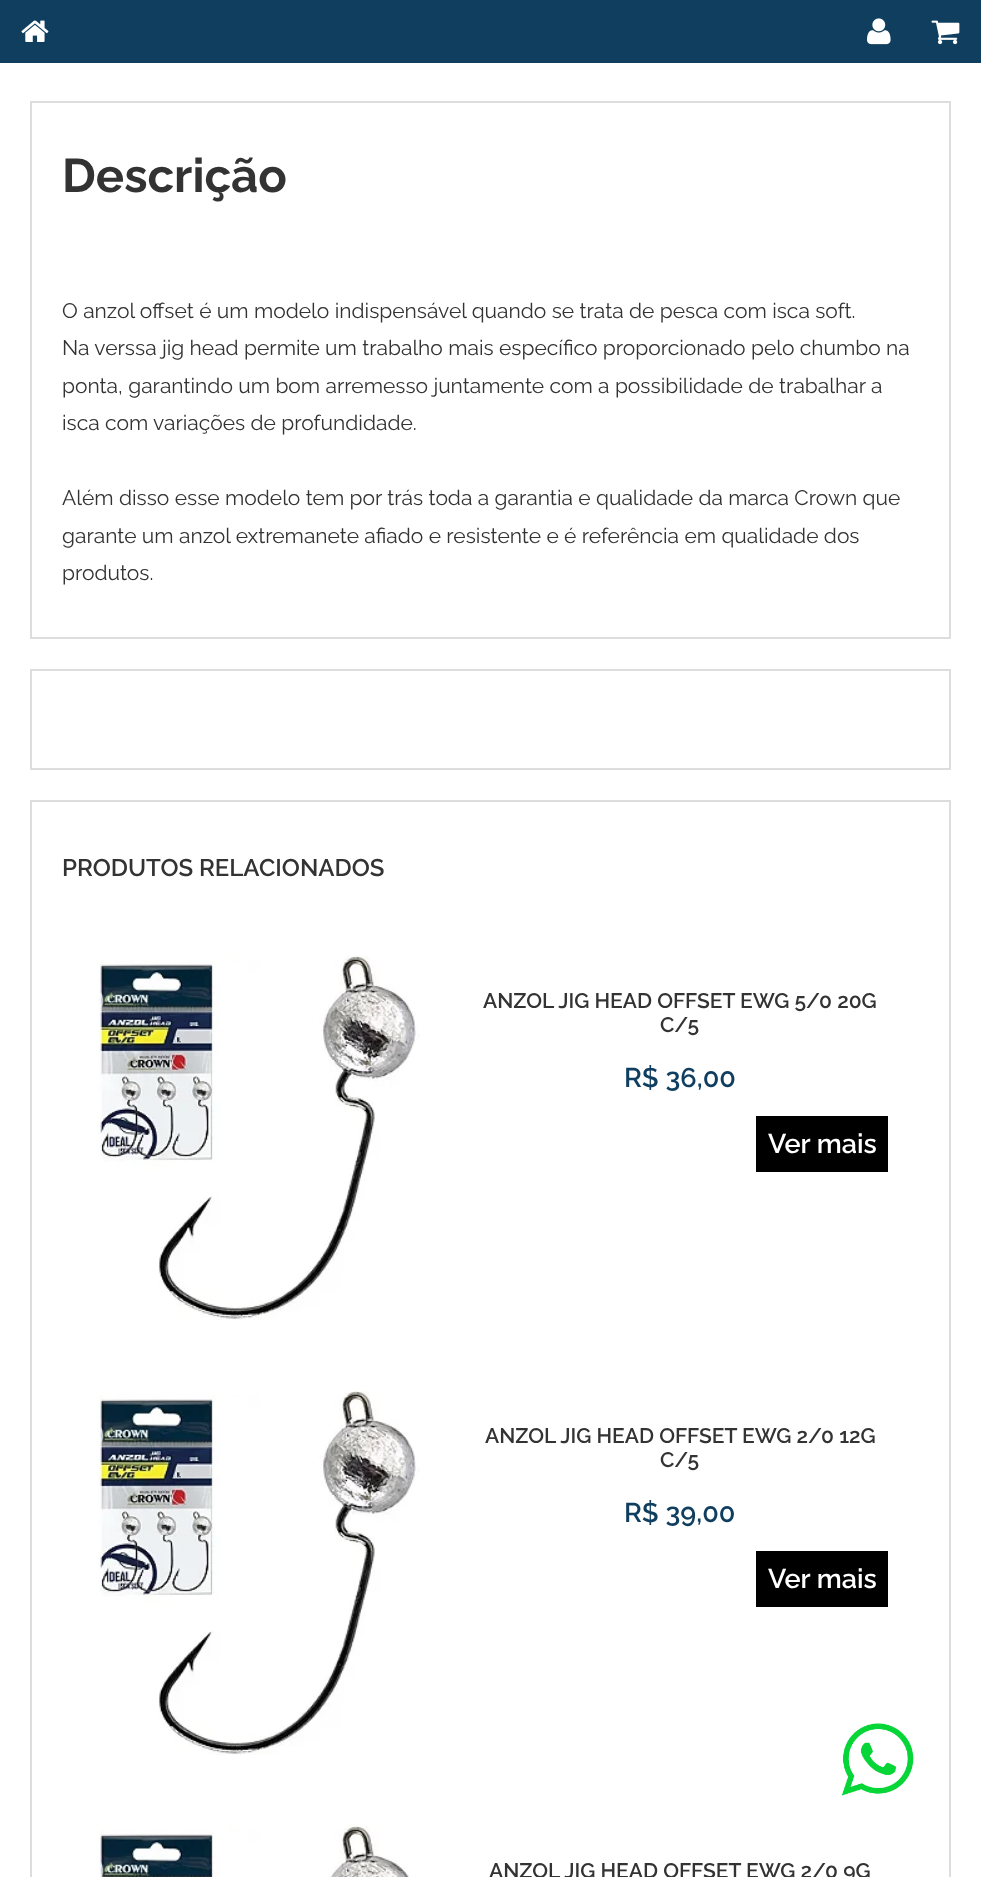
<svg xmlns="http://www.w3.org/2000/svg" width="981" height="1877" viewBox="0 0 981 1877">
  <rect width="100%" height="100%" fill="rgb(255,255,255)"/>
  <rect x="0" y="0" width="981" height="63" fill="rgb(15,62,95)"/>
  <image x="21" y="20" width="28" height="22" href="pic1.png"/>
  <image x="867" y="18" width="24" height="27" href="pic2.png"/>
  <image x="931" y="20" width="29" height="25" href="pic3.png"/>
  <rect x="31" y="102" width="919" height="536" fill="none" stroke="rgb(221,221,221)" stroke-width="2"/>
  <text x="62" y="192" font-family="Raleway" font-size="47.25" font-weight="bold" fill="rgb(51,51,51)">Descrição</text>
  <g font-family="Raleway" font-size="21" fill="rgb(51,51,51)">
    <text>
      <tspan x="62" y="318">O anzol offset é um modelo indispensável quando se trata de pesca com isca soft.</tspan>
      <tspan x="62" y="355">Na verssa jig head permite um trabalho mais específico proporcionado pelo chumbo na</tspan>
      <tspan x="62" y="393">ponta, garantindo um bom arremesso juntamente com a possibilidade de trabalhar a</tspan>
      <tspan x="62" y="430">isca com variações de profundidade.</tspan>
    </text>
    <text>
      <tspan x="62" y="505">Além disso esse modelo tem por trás toda a garantia e qualidade da marca Crown que</tspan>
      <tspan x="62" y="543">garante um anzol extremanete afiado e resistente e é referência em qualidade dos</tspan>
      <tspan x="62" y="580">produtos.</tspan>
    </text>
  </g>
  <rect x="31" y="670" width="919" height="99" fill="none" stroke="rgb(221,221,221)" stroke-width="2"/>
  <rect x="31" y="801" width="919" height="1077" fill="none" stroke="rgb(221,221,221)" stroke-width="2"/>
  <text x="62" y="876" font-family="Raleway" font-size="24" font-weight="600" fill="rgb(51,51,51)">PRODUTOS RELACIONADOS</text>
  <image x="98" y="955" width="322" height="365" href="pic4.png"/>
  <g font-family="Raleway" font-size="21" font-weight="600" fill="rgb(51,51,51)">
    <text x="483" y="1008">ANZOL JIG HEAD OFFSET EWG 5/0 20G</text>
    <text x="660" y="1032">C/5</text>
  </g>
  <text x="624" y="1087" font-family="Raleway" font-size="27" font-weight="600" fill="rgb(15,62,95)">R$ 36,00</text>
  <rect x="756" y="1116" width="132" height="56" fill="rgb(0,0,0)"/>
  <text x="768" y="1153" font-family="Raleway" font-size="27" font-weight="600" fill="rgb(255,255,255)">Ver mais</text>
  <image x="98" y="1390" width="322" height="365" href="pic4.png"/>
  <g font-family="Raleway" font-size="21" font-weight="600" fill="rgb(51,51,51)">
    <text x="485" y="1443">ANZOL JIG HEAD OFFSET EWG 2/0 12G</text>
    <text x="660" y="1467">C/5</text>
  </g>
  <text x="624" y="1522" font-family="Raleway" font-size="27" font-weight="600" fill="rgb(15,62,95)">R$ 39,00</text>
  <rect x="756" y="1551" width="132" height="56" fill="rgb(0,0,0)"/>
  <text x="768" y="1588" font-family="Raleway" font-size="27" font-weight="600" fill="rgb(255,255,255)">Ver mais</text>
  <image x="99" y="1825" width="310" height="52" href="pic5.png"/>
  <text x="489" y="1878" font-family="Raleway" font-size="21" font-weight="600" fill="rgb(51,51,51)">ANZOL JIG HEAD OFFSET EWG 2/0 9G</text>
  <image x="841" y="1723" width="73" height="73" href="pic6.png"/>
</svg>
